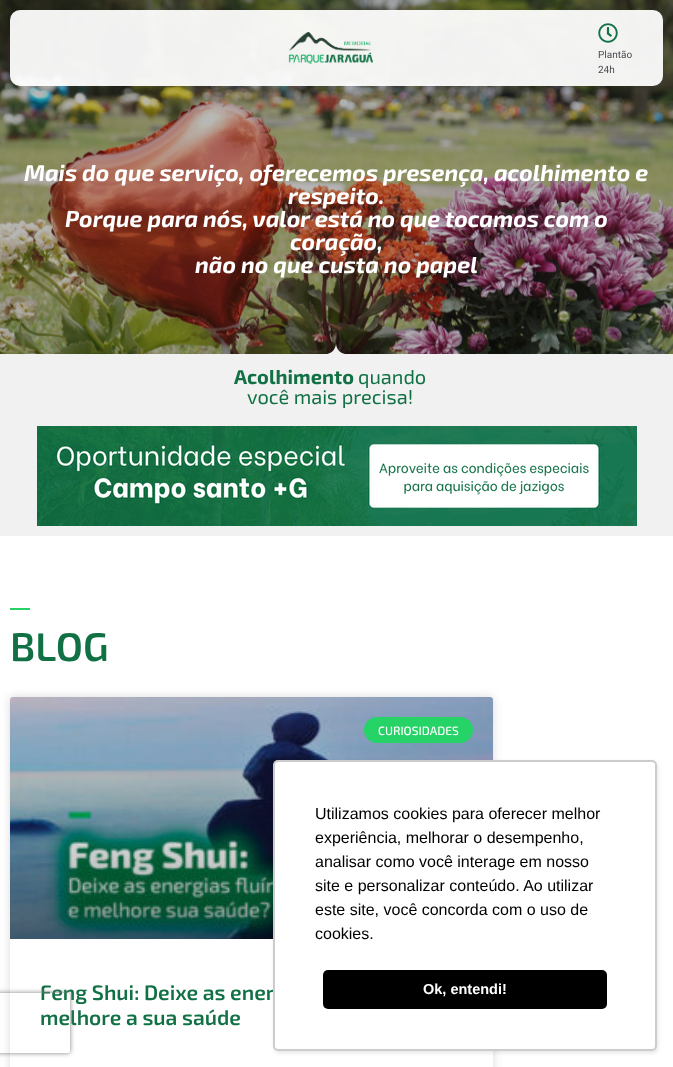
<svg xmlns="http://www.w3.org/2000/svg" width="673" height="1067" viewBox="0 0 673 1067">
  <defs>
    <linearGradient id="g1" gradientUnits="userSpaceOnUse" x1="252" y1="939" x2="252" y2="697"><stop offset="0" stop-color="rgb(0,0,0)" stop-opacity="0.35"/><stop offset="0.75" stop-color="rgb(0,0,0)" stop-opacity="0"/></linearGradient>
    <clipPath id="clip1"><path d="M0 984H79V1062H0ZM-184 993H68C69 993 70 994 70 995V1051C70 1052 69 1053 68 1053H-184C-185 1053-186 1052-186 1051V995C-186 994-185 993-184 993Z" clip-rule="evenodd"/></clipPath>
  </defs>
  <rect width="100%" height="100%" fill="rgb(255,255,255)"/>
  <image x="0" y="0" width="673" height="354" href="pic3.png"/>
  <rect x="10" y="10" width="653" height="76" rx="10" fill="rgba(255,255,255,0.94)"/>
  <image x="288" y="32" width="85" height="32" href="pic1.png"/>
  <image x="598" y="23" width="20" height="20" href="pic2.png"/>
  <g font-family="Roboto" font-size="10" fill="rgb(73,76,79)">
    <text>
      <tspan x="598" y="58">Plantão</tspan>
      <tspan x="598" y="73">24h</tspan>
    </text>
  </g>
  <g font-family="'Exo 2'" font-size="23" font-weight="bold" font-style="italic" fill="rgb(255,255,255)">
    <text x="24" y="181">Mais do que serviço, oferecemos presença, acolhimento e</text>
    <text x="288" y="204">respeito.</text>
    <text x="65" y="227">Porque para nós, valor está no que tocamos com o</text>
    <text x="290" y="250">coração,</text>
    <text x="195" y="273">não no que custa no papel</text>
  </g>
  <path d="M673 357V354H345C340 353 336 349 336 343C336 349 332 353 327 354H-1V357Z" fill="rgb(241,241,241)"/>
  <rect x="0" y="357" width="673" height="179" fill="rgb(241,241,241)"/>
  <text x="234" y="384" font-family="'Exo 2'" font-size="20" font-weight="bold" fill="rgb(17,113,69)">Acolhimento</text>
  <g font-family="'Exo 2'" font-size="20" fill="rgb(17,113,69)">
    <text x="358" y="384">quando</text>
    <text x="247" y="404">você mais precisa!</text>
  </g>
  <image x="37" y="426" width="600" height="100" href="pic4.png"/>
  <rect x="10" y="608" width="20" height="2" fill="rgb(37,211,102)"/>
  <text x="10" y="661" font-family="'Exo 2'" font-size="40" font-weight="600" fill="rgb(17,113,69)">BLOG</text>
  <rect x="10" y="697" width="483" height="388" rx="3" fill="rgba(0,0,0,0.15)" filter="blur(5px)"/>
  <rect x="10" y="697" width="483" height="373" rx="3" fill="rgb(255,255,255)"/>
  <image x="10" y="697" width="483" height="242" href="pic5.png"/>
  <rect x="10" y="769" width="263" height="170" fill="url(#g1)"/>
  <rect x="364" y="717" width="109" height="26" rx="13" fill="rgb(37,211,102)"/>
  <text x="378" y="735" font-family="'Exo 2'" font-size="12" font-weight="500" fill="rgb(255,255,255)">CURIOSIDADES</text>
  <g font-family="'Exo 2'" font-size="21" font-weight="600" fill="rgb(17,113,69)">
    <text>
      <tspan x="40" y="1000">Feng Shui: Deixe as ener</tspan>
      <tspan x="40" y="1025">melhore a sua saúde</tspan>
    </text>
  </g>
  <rect x="274" y="762" width="384" height="291" rx="5" fill="rgba(0,0,0,0.1)" filter="blur(2px)"/>
  <rect x="273" y="760" width="384" height="291" rx="5" fill="rgb(255,255,255)"/>
  <rect x="274" y="761" width="382" height="289" rx="4" fill="none" stroke="rgba(0,0,0,0.2)" stroke-width="2"/>
  <g font-family="Liberation Sans" font-size="16" fill="rgb(0,0,0)">
    <text>
      <tspan x="315" y="819">Utilizamos cookies para oferecer melhor</tspan>
      <tspan x="315" y="843">experiência, melhorar o desempenho,</tspan>
      <tspan x="315" y="867">analisar como você interage em nosso</tspan>
      <tspan x="315" y="891">site e personalizar conteúdo. Ao utilizar</tspan>
      <tspan x="315" y="915">este site, você concorda com o uso de</tspan>
      <tspan x="315" y="939">cookies.</tspan>
    </text>
  </g>
  <rect x="323" y="970" width="284" height="39" rx="5" fill="rgb(0,0,0)"/>
  <text x="423" y="994" font-family="Liberation Sans" font-size="14.5" font-weight="bold" fill="rgb(255,255,255)">Ok, entendi!</text>
  <g clip-path="url(#clip1)">
    <rect x="-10" y="993" width="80" height="60" rx="2" fill="rgb(128,128,128)" filter="blur(2.5px)"/>
  </g>
</svg>
